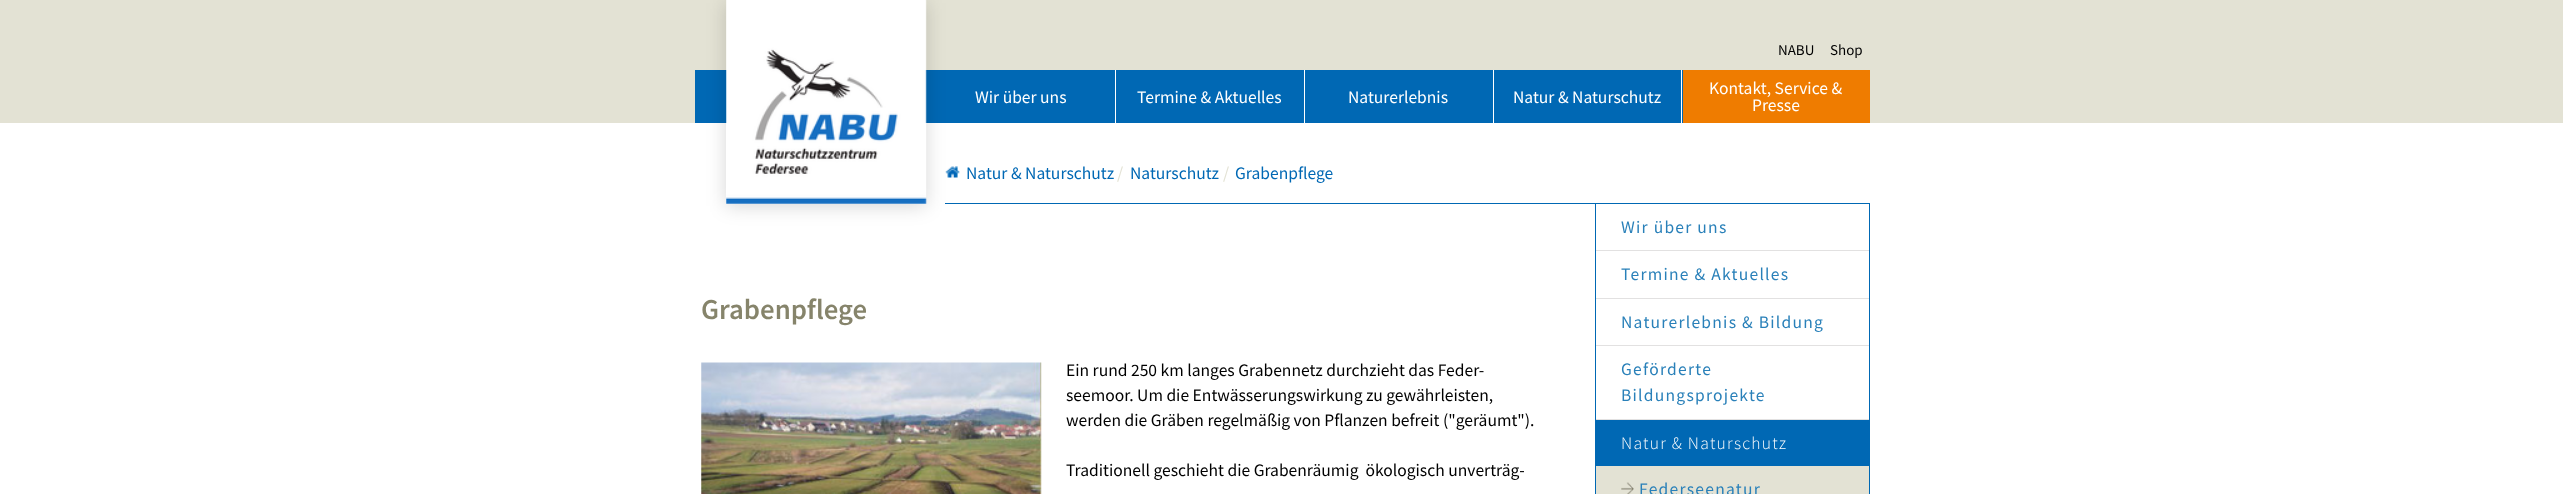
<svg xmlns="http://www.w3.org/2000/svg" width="2563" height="494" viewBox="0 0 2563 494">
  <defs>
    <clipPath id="clip1"><path d="M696 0H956V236H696ZM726 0H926V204H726Z" clip-rule="evenodd"/></clipPath>
  </defs>
  <rect width="100%" height="100%" fill="rgb(227,226,212)"/>
  <rect x="695" y="70" width="988" height="53" fill="rgb(0,104,180)"/>
  <rect x="0" y="123" width="2563" height="371" fill="rgb(255,255,255)"/>
  <rect x="945" y="203" width="650" height="1" fill="rgb(0,104,180)"/>
  <image x="945" y="166" width="15" height="12" href="pic2.png"/>
  <g clip-path="url(#clip1)">
    <rect x="726" y="3" width="200" height="203" fill="rgba(0,0,0,0.16)" filter="blur(9.5px)"/>
  </g>
  <image x="726" y="0" width="201" height="204" href="pic1.png"/>
  <g font-family="Source Sans Pro" font-size="15" fill="rgb(0,0,0)">
    <text x="1778" y="55">NABU</text>
    <text x="1830" y="55">Shop</text>
  </g>
  <rect x="1115" y="70" width="1" height="53" fill="rgb(255,255,255)"/>
  <text x="975" y="103" font-family="Source Sans Pro" font-size="17.5" fill="rgb(255,255,255)">Wir über uns</text>
  <rect x="1304" y="70" width="1" height="53" fill="rgb(255,255,255)"/>
  <text x="1137" y="103" font-family="Source Sans Pro" font-size="17.5" fill="rgb(255,255,255)">Termine &amp; Aktuelles</text>
  <rect x="1493" y="70" width="1" height="53" fill="rgb(255,255,255)"/>
  <text x="1348" y="103" font-family="Source Sans Pro" font-size="17.5" fill="rgb(255,255,255)">Naturerlebnis</text>
  <rect x="1681" y="70" width="1" height="53" fill="rgb(255,255,255)"/>
  <text x="1513" y="103" font-family="Source Sans Pro" font-size="17.5" fill="rgb(255,255,255)">Natur &amp; Naturschutz</text>
  <rect x="1683" y="70" width="187" height="53" fill="rgb(239,124,0)"/>
  <g font-family="Source Sans Pro" font-size="17.5" fill="rgb(255,255,255)">
    <text x="1709" y="94">Kontakt, Service &amp;</text>
    <text x="1752" y="111">Presse</text>
  </g>
  <text x="966" y="179" font-family="Source Sans Pro" font-size="17.5" fill="rgb(0,104,180)">Natur &amp; Naturschutz</text>
  <text x="1117" y="179" font-family="Source Sans Pro" font-size="17.5" fill="rgb(227,226,212)">/</text>
  <text x="1130" y="179" font-family="Source Sans Pro" font-size="17.5" fill="rgb(0,104,180)">Naturschutz</text>
  <text x="1223" y="179" font-family="Source Sans Pro" font-size="17.5" fill="rgb(227,226,212)">/</text>
  <text x="1235" y="179" font-family="Source Sans Pro" font-size="17.5" fill="rgb(0,104,180)">Grabenpflege</text>
  <text x="701" y="319" font-family="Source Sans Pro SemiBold" font-size="28.75" font-weight="600" fill="rgb(134,132,107)">Grabenpflege</text>
  <image x="701" y="362" width="341" height="132" href="pic3.png"/>
  <g font-family="Source Sans Pro" font-size="17.5" fill="rgb(0,0,0)">
    <text>
      <tspan x="1066" y="376">Ein rund 250 km langes Grabennetz durchzieht das Feder-</tspan>
      <tspan x="1066" y="401">seemoor. Um die Entwässerungswirkung zu gewährleisten,</tspan>
      <tspan x="1066" y="426">werden die Gräben regelmäßig von Pflanzen befreit ("geräumt").</tspan>
    </text>
    <text x="1066" y="476" xml:space="preserve">Traditionell geschieht die Grabenräumig  ökologisch unverträg-</text>
  </g>
  <rect x="1595.5" y="203.5" width="274" height="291" fill="none" stroke="rgb(0,104,180)"/>
  <rect x="1596" y="250" width="273" height="1" fill="rgb(226,225,225)"/>
  <text x="1621" y="233" font-family="Source Sans Pro" font-size="17.5" letter-spacing="1.25" fill="rgb(41,128,185)">Wir über uns</text>
  <rect x="1596" y="298" width="273" height="1" fill="rgb(226,225,225)"/>
  <text x="1621" y="280" font-family="Source Sans Pro" font-size="17.5" letter-spacing="1.25" fill="rgb(41,128,185)">Termine &amp; Aktuelles</text>
  <rect x="1596" y="345" width="273" height="1" fill="rgb(226,225,225)"/>
  <text x="1621" y="328" font-family="Source Sans Pro" font-size="17.5" letter-spacing="1.25" fill="rgb(41,128,185)">Naturerlebnis &amp; Bildung</text>
  <rect x="1596" y="419" width="273" height="1" fill="rgb(226,225,225)"/>
  <g font-family="Source Sans Pro" font-size="17.5" letter-spacing="1.25" fill="rgb(41,128,185)">
    <text>
      <tspan x="1621" y="375">Geförderte</tspan>
      <tspan x="1621" y="401">Bildungsprojekte</tspan>
    </text>
  </g>
  <rect x="1596" y="420" width="273" height="46" fill="rgb(0,104,180)"/>
  <text x="1621" y="449" font-family="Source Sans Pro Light" font-size="17.5" font-weight="300" letter-spacing="1.25" fill="rgb(255,255,255)">Natur &amp; Naturschutz</text>
  <rect x="1596" y="466" width="273" height="28" fill="rgb(227,226,212)"/>
  <image x="1621" y="482" width="13" height="12" href="pic4.png"/>
  <text x="1639" y="495" font-family="Source Sans Pro" font-size="17.5" letter-spacing="1.25" fill="rgb(41,128,185)">Federseenatur</text>
</svg>
